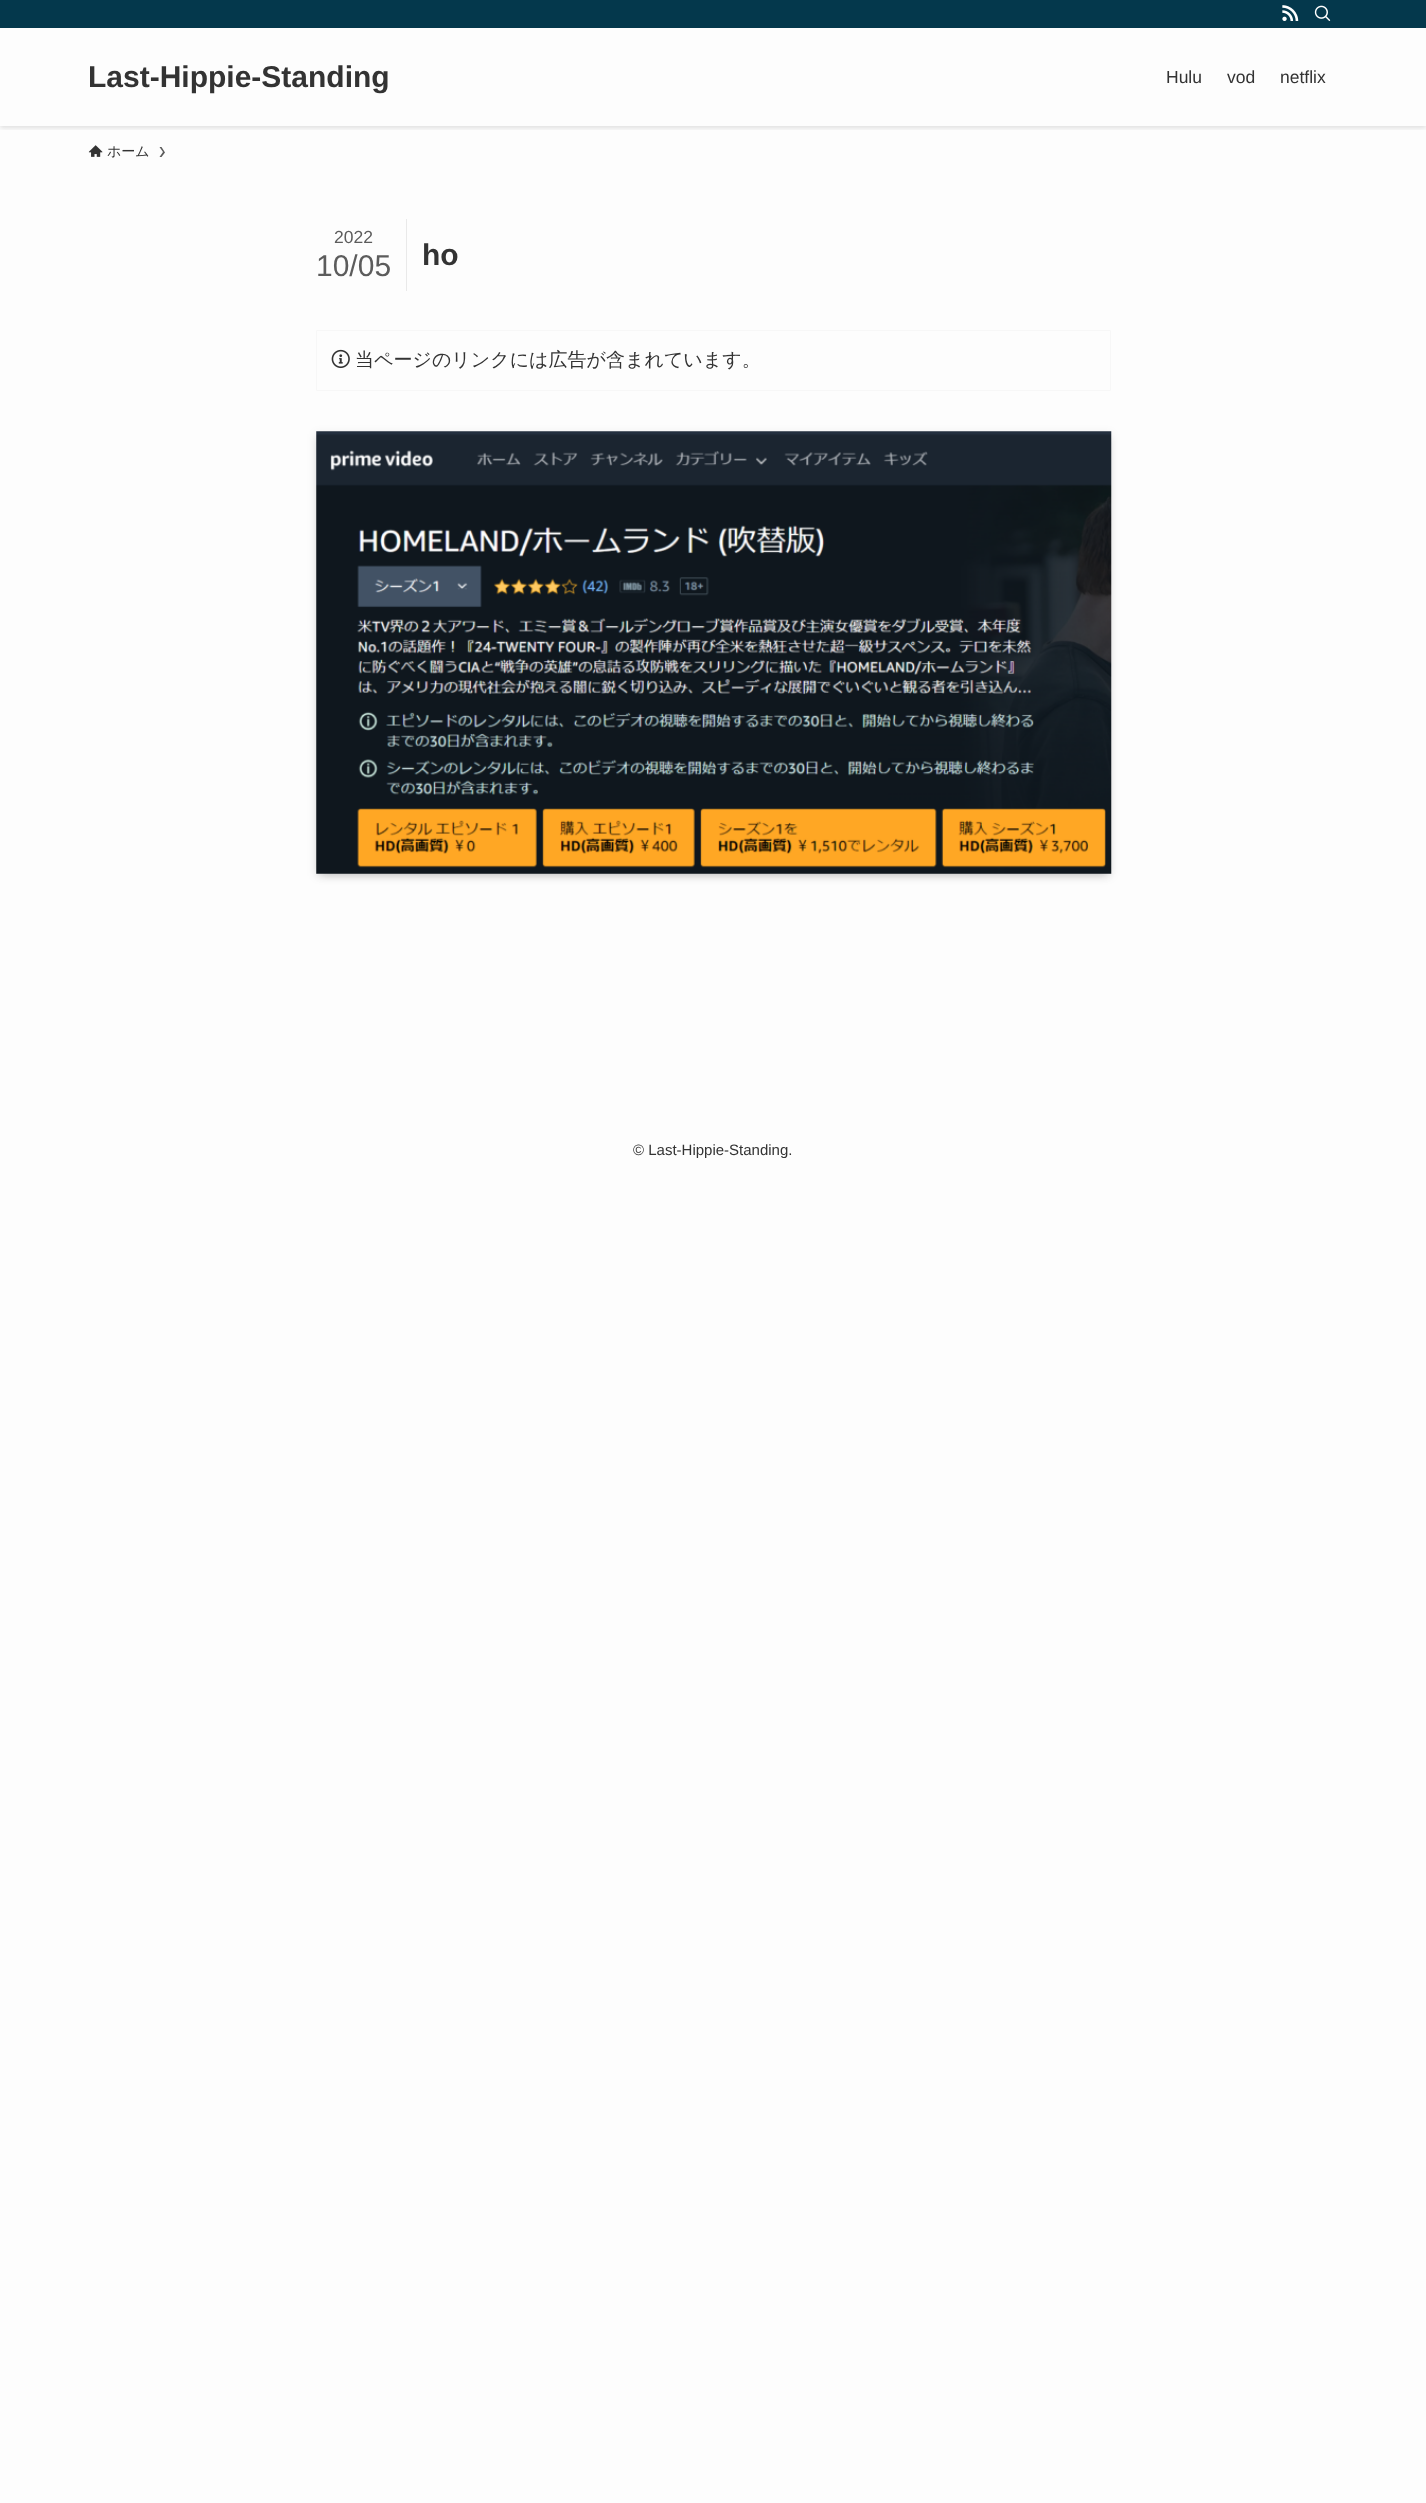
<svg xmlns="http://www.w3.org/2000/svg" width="1426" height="2503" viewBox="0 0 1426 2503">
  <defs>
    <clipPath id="clip1"><rect x="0" y="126" width="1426" height="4"/></clipPath>
  </defs>
  <rect width="100%" height="100%" fill="rgb(253,253,253)"/>
  <g clip-path="url(#clip1)">
    <rect x="0" y="1" width="1426" height="127" fill="rgba(0,0,0,0.12)" filter="blur(2.5px)"/>
  </g>
  <rect x="0" y="0" width="1426" height="28" fill="rgb(4,56,76)"/>
  <image x="1282" y="5" width="17" height="16" href="pic1.png"/>
  <image x="1314" y="5" width="17" height="16" href="pic2.png"/>
  <text x="88" y="87" font-family="Liberation Sans" font-size="30" font-weight="bold" fill="rgb(51,51,51)">Last-Hippie-Standing</text>
  <g font-family="Liberation Sans" font-size="17.5" fill="rgb(51,51,51)">
    <text x="1166" y="83">Hulu</text>
    <text x="1227" y="83">vod</text>
    <text x="1280" y="83">netflix</text>
  </g>
  <image x="88" y="145" width="15" height="12" href="pic3.png"/>
  <text x="107" y="156" font-family="WenQuanYi Zen Hei" font-size="14" font-weight="500" fill="rgb(51,51,51)">ホーム</text>
  <path d="M161.5 147H159.5L163 152L159.5 157H161.5L165 152.5Z" fill="rgb(91,91,91)"/>
  <rect x="406" y="219" width="1" height="72" fill="rgb(233,233,233)"/>
  <text x="334" y="243" font-family="Liberation Sans" font-size="17.5" fill="rgb(92,92,92)">2022</text>
  <text x="316" y="276" font-family="Liberation Sans" font-size="30" fill="rgb(92,92,92)">10/05</text>
  <text x="422" y="265" font-family="Liberation Sans" font-size="30" font-weight="bold" fill="rgb(51,51,51)">ho</text>
  <rect x="316.5" y="330.5" width="794" height="60" rx="0.5" fill="none" stroke="rgb(247,247,247)"/>
  <image x="331" y="349" width="19" height="20" href="pic4.png"/>
  <text x="355" y="366" font-family="WenQuanYi Zen Hei" font-size="19" font-weight="500" fill="rgb(51,51,51)">当ページのリンクには広告が含まれています。</text>
  <rect x="321" y="441" width="785" height="433" fill="rgba(0,0,0,0.2)" filter="blur(5px)"/>
  <rect x="316" y="434" width="795" height="442" fill="rgba(0,0,0,0.1)" filter="blur(5px)"/>
  <image x="316" y="431" width="796" height="443" href="pic5.png"/>
  <text x="633" y="1155" font-family="Liberation Sans" font-size="15" fill="rgb(51,51,51)">© Last-Hippie-Standing.</text>
</svg>
